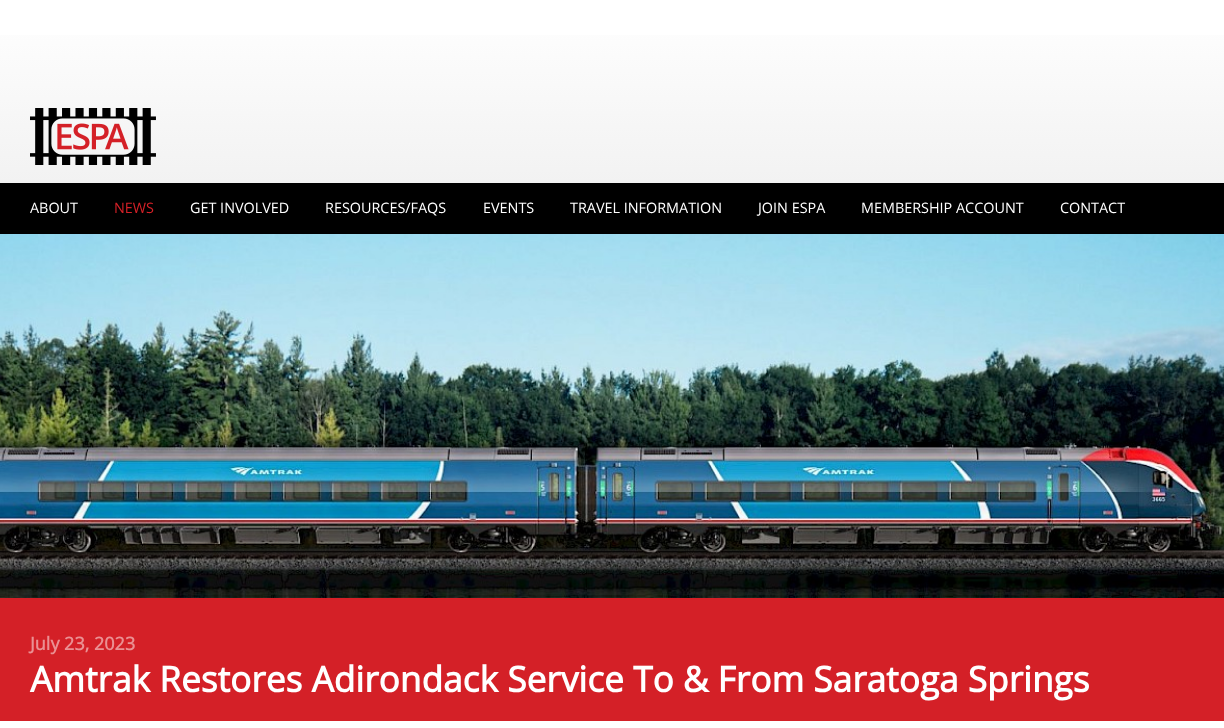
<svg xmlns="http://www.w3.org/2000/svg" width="1224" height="728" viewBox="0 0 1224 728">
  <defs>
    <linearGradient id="g1" gradientUnits="userSpaceOnUse" x1="612" y1="0" x2="612" y2="183"><stop offset="0" stop-color="rgb(255,255,255)"/><stop offset="1" stop-color="rgb(242,242,242)"/></linearGradient>
  </defs>
  <rect width="100%" height="100%" fill="rgb(255,255,255)"/>
  <rect x="0" y="35" width="1224" height="148" fill="url(#g1)"/>
  <image x="30" y="108" width="126" height="57" href="pic1.png"/>
  <rect x="0" y="183" width="1224" height="51" fill="rgb(0,0,0)"/>
  <text x="30" y="213" font-family="Open Sans" font-size="14.4" fill="rgb(255,255,255)">ABOUT</text>
  <text x="114" y="213" font-family="Open Sans" font-size="14.4" fill="rgb(212,32,39)">NEWS</text>
  <g font-family="Open Sans" font-size="14.4" fill="rgb(255,255,255)">
    <text x="190" y="213">GET INVOLVED</text>
    <text x="325" y="213">RESOURCES/FAQS</text>
    <text x="483" y="213">EVENTS</text>
    <text x="570" y="213">TRAVEL INFORMATION</text>
    <text x="758" y="213">JOIN ESPA</text>
    <text x="861" y="213">MEMBERSHIP ACCOUNT</text>
    <text x="1060" y="213">CONTACT</text>
  </g>
  <image x="0" y="234" width="1224" height="364" href="pic2.png"/>
  <rect x="0" y="598" width="1224" height="123" fill="rgb(212,32,39)"/>
  <text x="30" y="650" font-family="Open Sans" font-size="18" font-weight="bold" fill="rgb(234,144,147)">July 23, 2023</text>
  <text x="30" y="692" font-family="Open Sans" font-size="35.25" font-weight="bold" fill="rgb(255,255,255)">Amtrak Restores Adirondack Service To &amp; From Saratoga Springs</text>
</svg>
